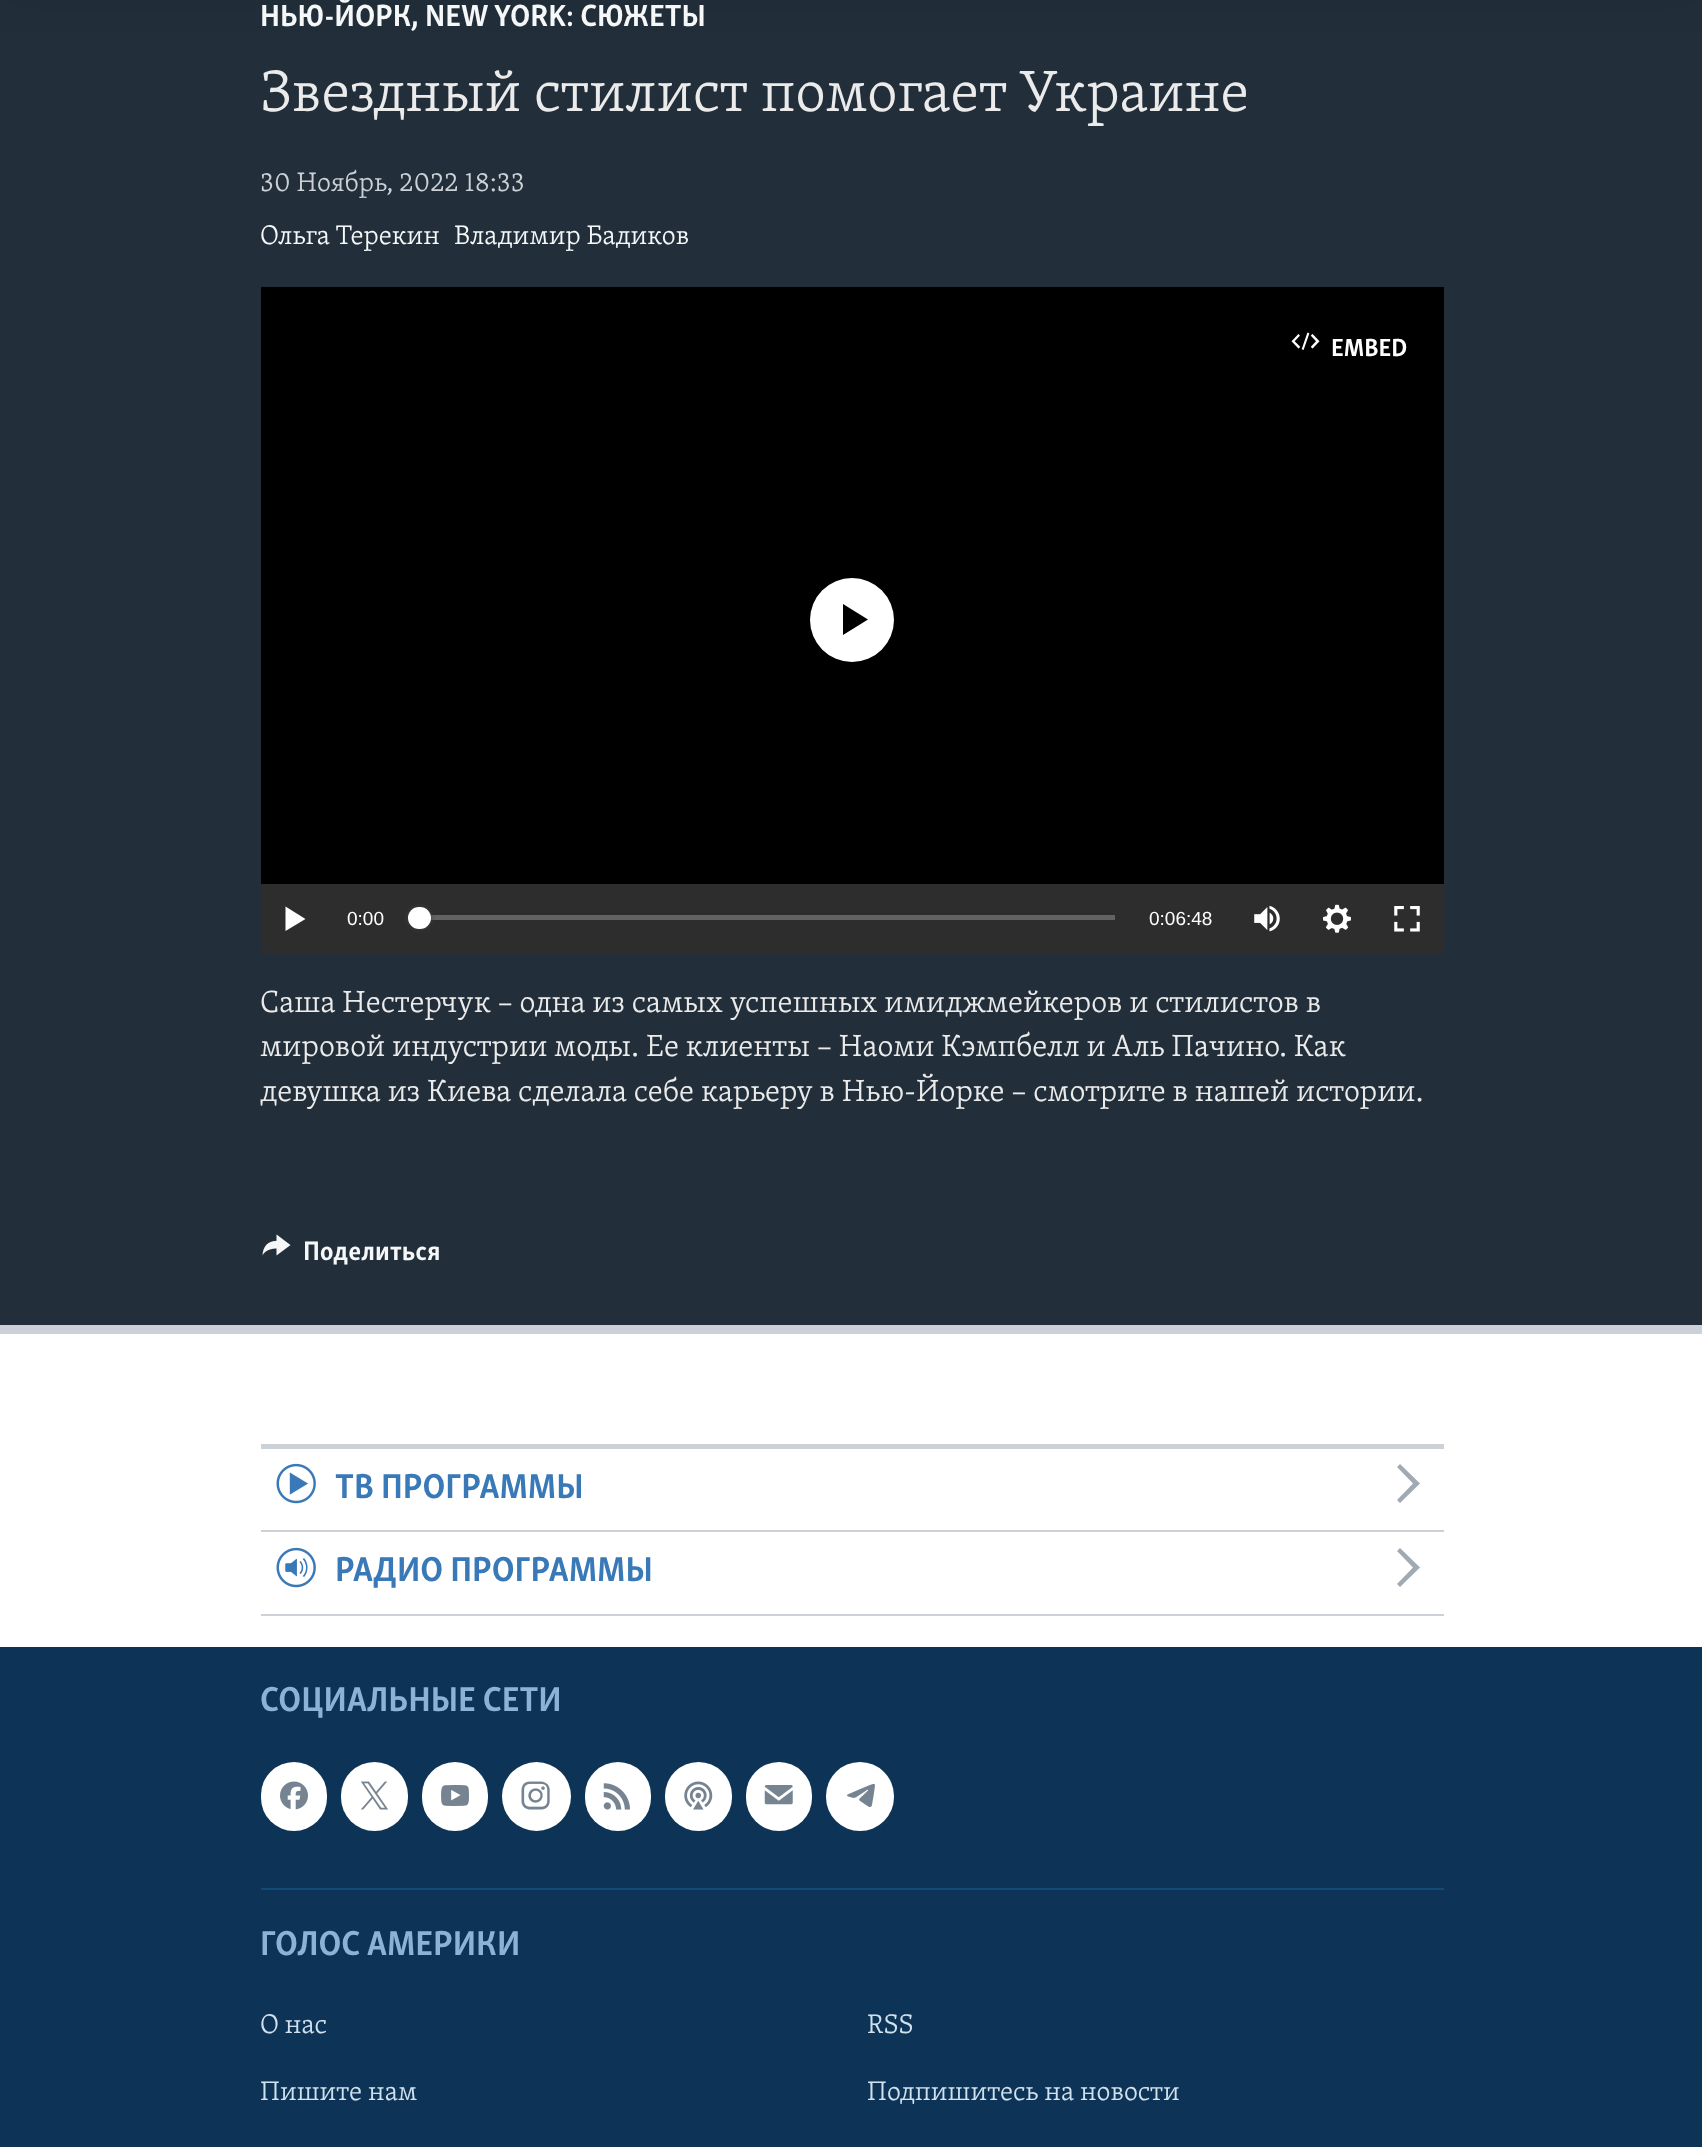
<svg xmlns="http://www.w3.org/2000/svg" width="1702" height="2147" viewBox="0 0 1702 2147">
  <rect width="100%" height="100%" fill="rgb(255,255,255)"/>
  <rect x="0" y="0" width="1702" height="1325" fill="rgb(34,47,58)"/>
  <rect x="0" y="-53" width="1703" height="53" fill="rgba(0,0,0,0.1)" filter="blur(17.5px)"/>
  <rect x="0" y="1325" width="1702" height="9" fill="rgb(203,209,214)"/>
  <text x="260" y="26" font-family="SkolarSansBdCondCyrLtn" font-size="31.5" font-weight="bold" fill="rgb(246,247,248)">НЬЮ-ЙОРК, NEW YORK: СЮЖЕТЫ</text>
  <text x="260" y="111" font-family="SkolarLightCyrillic" font-size="59.8" font-weight="300" fill="rgb(235,235,235)">Звездный стилист помогает Украине</text>
  <text x="260" y="191" font-family="SkolarLightCyrillic" font-size="27.5" font-weight="300" fill="rgb(203,209,214)">30 Ноябрь, 2022 18:33</text>
  <g font-family="SkolarLightCyrillic" font-size="27.5" font-weight="300" fill="rgb(246,247,248)">
    <text x="260" y="244">Ольга Терекин</text>
    <text x="454" y="244">Владимир Бадиков</text>
  </g>
  <rect x="261" y="287" width="1183" height="597" fill="rgb(0,0,0)"/>
  <image x="1291" y="332" width="29" height="18" href="pic1.png"/>
  <text x="1331" y="356" font-family="SkolarSansBdCondCyrLtn" font-size="25.5" font-weight="bold" fill="rgb(255,255,255)">EMBED</text>
  <circle cx="852" cy="620" r="42" fill="rgb(255,255,255)"/>
  <path d="M843 635L868 619.5L843 604Z" fill="rgb(0,0,0)"/>
  <rect x="261" y="884" width="1183" height="70" fill="rgb(45,45,45)"/>
  <path d="M285.5 931L305.5 919L285.5 906.5Z" fill="rgb(255,255,255)"/>
  <text x="347" y="925" font-family="Liberation Sans" font-size="19" fill="rgb(255,255,255)">0:00</text>
  <rect x="430" y="915" width="685" height="5" fill="rgb(98,98,98)"/>
  <rect x="408" y="907" width="23" height="22" rx="11" fill="rgb(65,65,68)" filter="blur(2.5px)"/>
  <rect x="408" y="907" width="23" height="22" rx="11" fill="rgb(255,255,255)"/>
  <text x="1149" y="925" font-family="Liberation Sans" font-size="19" fill="rgb(255,255,255)">0:06:48</text>
  <image x="1254" y="905" width="26" height="27" href="pic2.png"/>
  <image x="1323" y="904" width="28" height="29" href="pic3.png"/>
  <image x="1394" y="906" width="26" height="26" href="pic4.png"/>
  <g font-family="SkolarLightCyrillic" font-size="31.5" font-weight="300" fill="rgb(235,235,235)">
    <text>
      <tspan x="260" y="1012">Саша Нестерчук – одна из самых успешных имиджмейкеров и стилистов в</tspan>
      <tspan x="260" y="1056">мировой индустрии моды. Ее клиенты – Наоми Кэмпбелл и Аль Пачино. Как</tspan>
      <tspan x="260" y="1101">девушка из Киева сделала себе карьеру в Нью-Йорке – смотрите в нашей истории.</tspan>
    </text>
  </g>
  <image x="262" y="1234" width="29" height="22" href="pic5.png"/>
  <text x="303" y="1260" font-family="SkolarSansBdCondCyrLtn" font-size="27.5" font-weight="bold" fill="rgb(246,247,248)">Поделиться</text>
  <rect x="261" y="1444" width="1183" height="5" fill="rgb(203,209,214)"/>
  <rect x="261" y="1530" width="1183" height="2" fill="rgb(203,209,214)"/>
  <image x="276" y="1463" width="40" height="41" href="pic6.png"/>
  <text x="335" y="1498" font-family="SkolarSansBdCondCyrLtn" font-size="35.5" font-weight="bold" fill="rgb(58,121,183)">ТВ ПРОГРАММЫ</text>
  <path d="M1400 1503L1420 1483.5L1400 1464L1397 1467L1413 1483.5L1397 1500Z" fill="rgb(161,170,180)"/>
  <rect x="261" y="1614" width="1183" height="2" fill="rgb(203,209,214)"/>
  <image x="276" y="1547" width="40" height="41" href="pic7.png"/>
  <text x="335" y="1581" font-family="SkolarSansBdCondCyrLtn" font-size="35.5" font-weight="bold" fill="rgb(58,121,183)">РАДИО ПРОГРАММЫ</text>
  <path d="M1400 1587L1420 1567.5L1400 1548L1397 1551L1413 1567.5L1397 1584Z" fill="rgb(161,170,180)"/>
  <rect x="0" y="1647" width="1702" height="500" fill="rgb(13,52,86)"/>
  <text x="260" y="1711" font-family="SkolarSansBdCondCyrLtn" font-size="35.5" font-weight="bold" fill="rgb(141,179,212)">СОЦИАЛЬНЫЕ СЕТИ</text>
  <rect x="261" y="1762" width="66" height="69" rx="33" fill="rgb(255,255,255)"/>
  <image x="280" y="1781" width="28" height="29" href="pic8.png"/>
  <rect x="341" y="1762" width="67" height="69" rx="33.5" fill="rgb(255,255,255)"/>
  <image x="361" y="1781" width="28" height="29" href="pic9.png"/>
  <rect x="422" y="1762" width="66" height="69" rx="33" fill="rgb(255,255,255)"/>
  <image x="441" y="1785" width="28" height="21" href="pic10.png"/>
  <circle cx="536.5" cy="1796.5" r="34.5" fill="rgb(255,255,255)"/>
  <image x="521" y="1781" width="29" height="29" href="pic11.png"/>
  <rect x="585" y="1762" width="66" height="69" rx="33" fill="rgb(255,255,255)"/>
  <image x="603" y="1783" width="27" height="27" href="pic12.png"/>
  <rect x="665" y="1762" width="67" height="69" rx="33.5" fill="rgb(255,255,255)"/>
  <image x="684" y="1781" width="29" height="29" href="pic13.png"/>
  <rect x="746" y="1762" width="66" height="69" rx="33" fill="rgb(255,255,255)"/>
  <image x="764" y="1785" width="29" height="20" href="pic14.png"/>
  <rect x="826" y="1762" width="68" height="69" rx="34" fill="rgb(255,255,255)"/>
  <image x="847" y="1783" width="28" height="24" href="pic15.png"/>
  <rect x="261" y="1888" width="1183" height="2" fill="rgb(19,73,118)"/>
  <text x="260" y="1955" font-family="SkolarSansBdCondCyrLtn" font-size="35.5" font-weight="bold" fill="rgb(141,179,212)">ГОЛОС АМЕРИКИ</text>
  <g font-family="SkolarLightCyrillic" font-size="27.5" font-weight="300" fill="rgb(209,225,238)">
    <text x="260" y="2033">О нас</text>
    <text x="867" y="2033">RSS</text>
    <text x="260" y="2100">Пишите нам</text>
    <text x="867" y="2100">Подпишитесь на новости</text>
  </g>
</svg>
